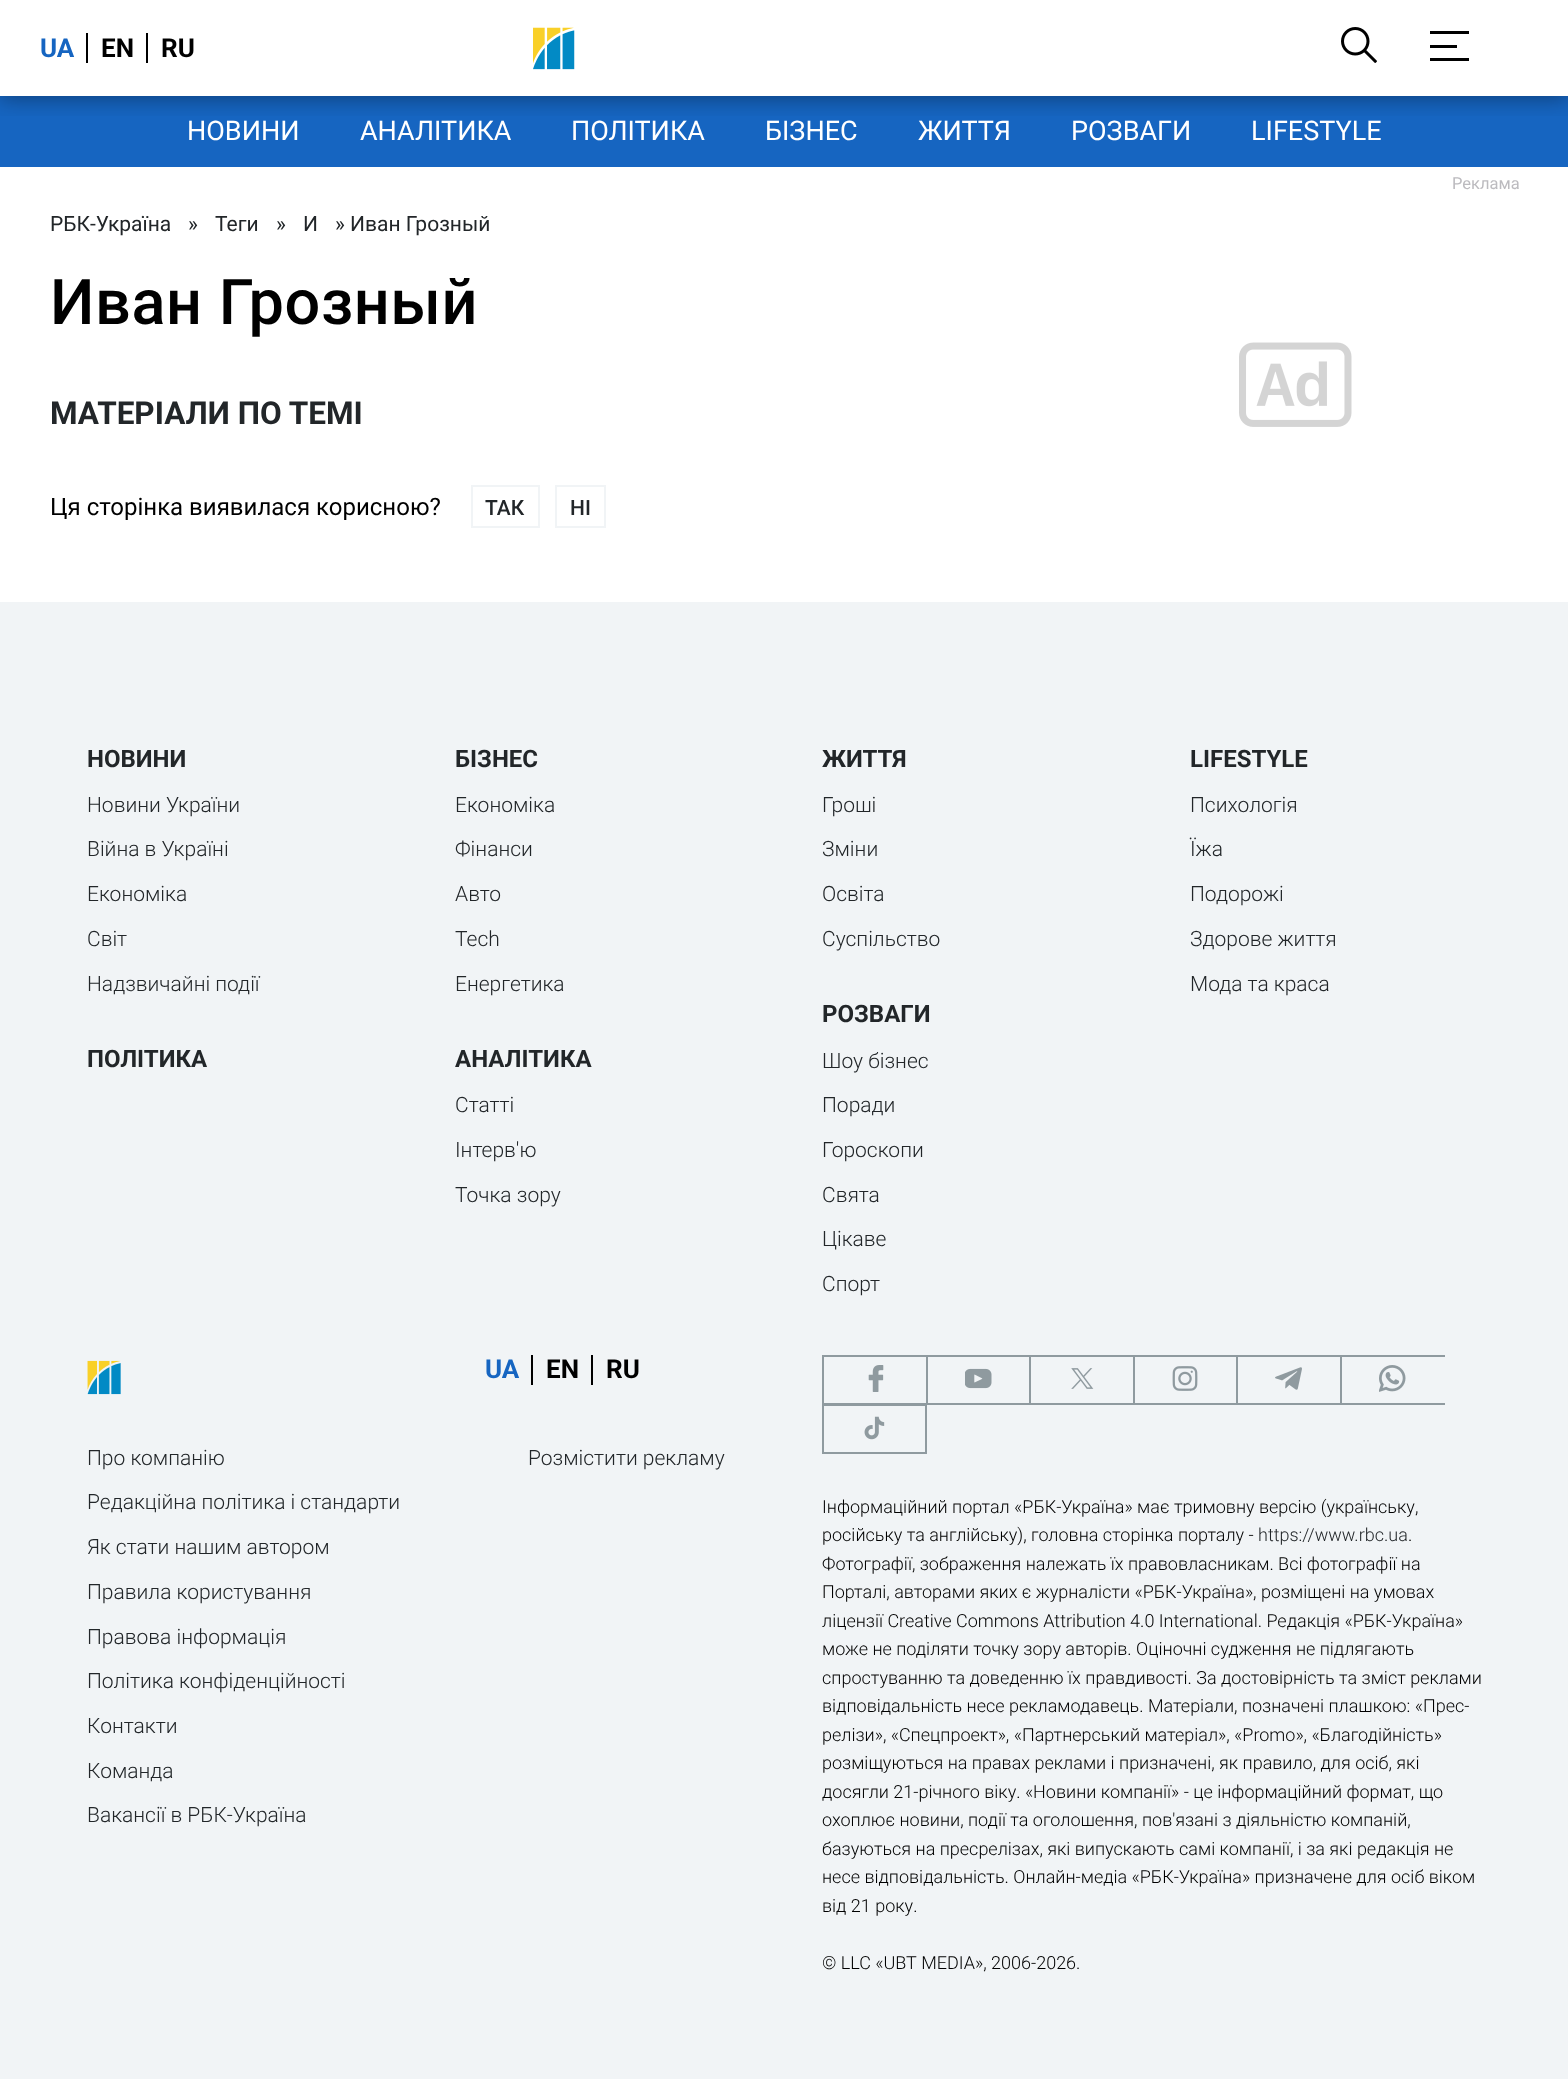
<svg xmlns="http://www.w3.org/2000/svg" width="1568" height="2091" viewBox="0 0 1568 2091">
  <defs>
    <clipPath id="clip1"><rect x="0" y="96" width="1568" height="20"/></clipPath>
  </defs>
  <rect width="100%" height="100%" fill="rgb(255,255,255)"/>
  <rect x="0" y="96" width="1568" height="71" fill="rgb(22,101,193)"/>
  <g clip-path="url(#clip1)">
    <rect x="0" y="2" width="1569" height="96" fill="rgba(0,0,0,0.38)" filter="blur(11px)"/>
  </g>
  <text x="40" y="57" font-family="Roboto" font-size="26" font-weight="bold" fill="rgb(22,101,193)">UA</text>
  <rect x="86" y="33" width="2" height="30" fill="rgb(0,0,0)"/>
  <text x="101" y="57" font-family="Roboto" font-size="26" font-weight="bold" fill="rgb(0,0,0)">EN</text>
  <rect x="146" y="33" width="2" height="30" fill="rgb(0,0,0)"/>
  <text x="161" y="57" font-family="Roboto" font-size="26" font-weight="bold" fill="rgb(0,0,0)">RU</text>
  <image x="533" y="27" width="42" height="43" href="pic1.png"/>
  <image x="1341" y="27" width="36" height="36" href="pic2.png"/>
  <rect x="1430" y="31" width="39" height="3" fill="rgb(0,0,0)"/>
  <rect x="1430" y="45" width="27" height="3" fill="rgb(0,0,0)"/>
  <rect x="1430" y="58" width="39" height="3" fill="rgb(0,0,0)"/>
  <g font-family="Roboto" font-size="27" fill="rgb(255,255,255)">
    <text x="187" y="140">НОВИНИ</text>
    <text x="360" y="140">АНАЛІТИКА</text>
    <text x="571" y="140">ПОЛІТИКА</text>
    <text x="765" y="140">БІЗНЕС</text>
    <text x="918" y="140">ЖИТТЯ</text>
    <text x="1071" y="140">РОЗВАГИ</text>
    <text x="1251" y="140">LIFESTYLE</text>
  </g>
  <text x="1452" y="189" font-family="Roboto" font-size="16.5" fill="rgb(188,187,191)">Реклама</text>
  <image x="1239" y="342" width="113" height="85" href="pic3.png"/>
  <g font-family="Roboto" font-size="21" fill="rgb(34,38,41)">
    <text x="50" y="231">РБК-Україна</text>
    <text x="188" y="231">»</text>
    <text x="215" y="231">Теги</text>
    <text x="276" y="231">»</text>
    <text x="303" y="231">И</text>
    <text x="335" y="231">» Иван Грозный</text>
  </g>
  <text x="50" y="324" font-family="Roboto" font-size="63" font-weight="500" letter-spacing="0.6" fill="rgb(0,0,0)">Иван Грозный</text>
  <text x="50" y="424" font-family="Roboto" font-size="31.5" font-weight="bold" fill="rgb(34,38,41)">МАТЕРІАЛИ ПО ТЕМІ</text>
  <text x="50" y="515" font-family="Roboto" font-size="24" fill="rgb(0,0,0)">Ця сторінка виявилася корисною?</text>
  <rect x="472" y="486" width="67" height="41" fill="none" stroke="rgb(241,244,246)" stroke-width="2"/>
  <text x="485" y="515" font-family="Roboto" font-size="21" font-weight="500" fill="rgb(34,38,41)">ТАК</text>
  <rect x="556" y="486" width="49" height="41" fill="none" stroke="rgb(241,244,246)" stroke-width="2"/>
  <text x="570" y="515" font-family="Roboto" font-size="21" font-weight="500" fill="rgb(34,38,41)">НІ</text>
  <rect x="0" y="602" width="1568" height="1477" fill="rgb(241,244,246)"/>
  <text x="87" y="767" font-family="Roboto" font-size="24" font-weight="bold" fill="rgb(34,38,41)">НОВИНИ</text>
  <g font-family="Roboto" font-size="21" font-weight="300" fill="rgb(34,38,41)">
    <text x="87" y="812">Новини України</text>
    <text x="87" y="856">Війна в Україні</text>
    <text x="87" y="901">Економіка</text>
    <text x="87" y="946">Світ</text>
    <text x="87" y="991">Надзвичайні події</text>
  </g>
  <g font-family="Roboto" font-size="24" font-weight="bold" fill="rgb(34,38,41)">
    <text x="87" y="1067">ПОЛІТИКА</text>
    <text x="455" y="767">БІЗНЕС</text>
  </g>
  <g font-family="Roboto" font-size="21" font-weight="300" fill="rgb(34,38,41)">
    <text x="455" y="812">Економіка</text>
    <text x="455" y="856">Фінанси</text>
    <text x="455" y="901">Авто</text>
    <text x="455" y="946">Tech</text>
    <text x="455" y="991">Енергетика</text>
  </g>
  <text x="455" y="1067" font-family="Roboto" font-size="24" font-weight="bold" fill="rgb(34,38,41)">АНАЛІТИКА</text>
  <g font-family="Roboto" font-size="21" font-weight="300" fill="rgb(34,38,41)">
    <text x="455" y="1112">Статті</text>
    <text x="455" y="1157">Інтерв'ю</text>
    <text x="455" y="1202">Точка зору</text>
  </g>
  <text x="822" y="767" font-family="Roboto" font-size="24" font-weight="bold" fill="rgb(34,38,41)">ЖИТТЯ</text>
  <g font-family="Roboto" font-size="21" font-weight="300" fill="rgb(34,38,41)">
    <text x="822" y="812">Гроші</text>
    <text x="822" y="856">Зміни</text>
    <text x="822" y="901">Освіта</text>
    <text x="822" y="946">Суспільство</text>
  </g>
  <text x="822" y="1022" font-family="Roboto" font-size="24" font-weight="bold" fill="rgb(34,38,41)">РОЗВАГИ</text>
  <g font-family="Roboto" font-size="21" font-weight="300" fill="rgb(34,38,41)">
    <text x="822" y="1068">Шоу бізнес</text>
    <text x="822" y="1112">Поради</text>
    <text x="822" y="1157">Гороскопи</text>
    <text x="822" y="1202">Свята</text>
    <text x="822" y="1246">Цікаве</text>
    <text x="822" y="1291">Спорт</text>
  </g>
  <text x="1190" y="767" font-family="Roboto" font-size="24" font-weight="bold" fill="rgb(34,38,41)">LIFESTYLE</text>
  <g font-family="Roboto" font-size="21" font-weight="300" fill="rgb(34,38,41)">
    <text x="1190" y="812">Психологія</text>
    <text x="1190" y="856">Їжа</text>
    <text x="1190" y="901">Подорожі</text>
    <text x="1190" y="946">Здорове життя</text>
    <text x="1190" y="991">Мода та краса</text>
  </g>
  <image x="87" y="1360" width="34" height="35" href="pic4.png"/>
  <text x="485" y="1378" font-family="Roboto" font-size="26" font-weight="bold" fill="rgb(22,101,193)">UA</text>
  <rect x="531" y="1355" width="2" height="30" fill="rgb(0,0,0)"/>
  <text x="546" y="1378" font-family="Roboto" font-size="26" font-weight="bold" fill="rgb(0,0,0)">EN</text>
  <rect x="591" y="1355" width="2" height="30" fill="rgb(0,0,0)"/>
  <text x="606" y="1378" font-family="Roboto" font-size="26" font-weight="bold" fill="rgb(0,0,0)">RU</text>
  <g font-family="Roboto" font-size="21" font-weight="300" fill="rgb(34,38,41)">
    <text x="87" y="1465">Про компанію</text>
    <text x="87" y="1509">Редакційна політика і стандарти</text>
    <text x="87" y="1554">Як стати нашим автором</text>
    <text x="87" y="1599">Правила користування</text>
    <text x="87" y="1644">Правова інформація</text>
    <text x="87" y="1688">Політика конфіденційності</text>
    <text x="87" y="1733">Контакти</text>
    <text x="87" y="1778">Команда</text>
    <text x="87" y="1822">Вакансії в РБК-Україна</text>
    <text x="528" y="1465">Розмістити рекламу</text>
  </g>
  <rect x="822" y="1355" width="623" height="2" fill="rgb(143,154,159)"/>
  <rect x="822" y="1403" width="105" height="1" fill="rgb(143,154,159)"/>
  <rect x="822" y="1355" width="2" height="49" fill="rgb(143,154,159)"/>
  <image x="868" y="1365" width="16" height="27" href="pic5.png"/>
  <rect x="926" y="1403" width="519" height="2" fill="rgb(143,154,159)"/>
  <rect x="926" y="1355" width="2" height="49" fill="rgb(143,154,159)"/>
  <image x="965" y="1368" width="27" height="21" href="pic6.png"/>
  <rect x="1029" y="1355" width="2" height="49" fill="rgb(143,154,159)"/>
  <image x="1071" y="1368" width="23" height="21" href="pic7.png"/>
  <rect x="1133" y="1355" width="2" height="49" fill="rgb(143,154,159)"/>
  <image x="1172" y="1366" width="26" height="25" href="pic8.png"/>
  <rect x="1236" y="1355" width="2" height="49" fill="rgb(143,154,159)"/>
  <image x="1275" y="1367" width="27" height="23" href="pic9.png"/>
  <rect x="1340" y="1355" width="2" height="49" fill="rgb(143,154,159)"/>
  <image x="1379" y="1365" width="27" height="27" href="pic10.png"/>
  <rect x="823" y="1405" width="103" height="48" fill="none" stroke="rgb(143,154,159)" stroke-width="2"/>
  <image x="864" y="1416" width="21" height="24" href="pic11.png"/>
  <g font-family="Roboto" font-size="18" font-weight="300" fill="rgb(0,0,0)">
    <text>
      <tspan x="822" y="1513">Інформаційний портал «РБК-Україна» має тримовну версію (українську,</tspan>
      <tspan x="822" y="1541">російську та англійську), головна сторінка порталу -</tspan>
    </text>
  </g>
  <text x="1258" y="1541" font-family="Roboto" font-size="18" font-weight="300" fill="rgb(34,38,41)">https://www.rbc.ua</text>
  <g font-family="Roboto" font-size="18" font-weight="300" fill="rgb(0,0,0)">
    <text x="1408" y="1541">.</text>
    <text>
      <tspan x="822" y="1570">Фотографії, зображення належать їх правовласникам. Всі фотографії на</tspan>
      <tspan x="822" y="1598">Порталі, авторами яких є журналісти «РБК-Україна», розміщені на умовах</tspan>
      <tspan x="822" y="1627">ліцензії Creative Commons Attribution 4.0 International. Редакція «РБК-Україна»</tspan>
      <tspan x="822" y="1655">може не поділяти точку зору авторів. Оціночні судження не підлягають</tspan>
      <tspan x="822" y="1684">спростуванню та доведенню їх правдивості. За достовірність та зміст реклами</tspan>
      <tspan x="822" y="1712">відповідальність несе рекламодавець. Матеріали, позначені плашкою: «Прес-</tspan>
      <tspan x="822" y="1741">релізи», «Спецпроект», «Партнерський матеріал», «Promo», «Благодійність»</tspan>
      <tspan x="822" y="1769">розміщуються на правах реклами і призначені, як правило, для осіб, які</tspan>
      <tspan x="822" y="1798">досягли 21-річного віку. «Новини компанії» - це інформаційний формат, що</tspan>
      <tspan x="822" y="1826">охоплює новини, події та оголошення, пов'язані з діяльністю компаній,</tspan>
      <tspan x="822" y="1855">базуються на пресрелізах, які випускають самі компанії, і за які редакція не</tspan>
      <tspan x="822" y="1883">несе відповідальність. Онлайн-медіа «РБК-Україна» призначене для осіб віком</tspan>
      <tspan x="822" y="1912">від 21 року.</tspan>
    </text>
    <text x="822" y="1969">© LLC «UBT MEDIA», 2006-2026.</text>
  </g>
</svg>
